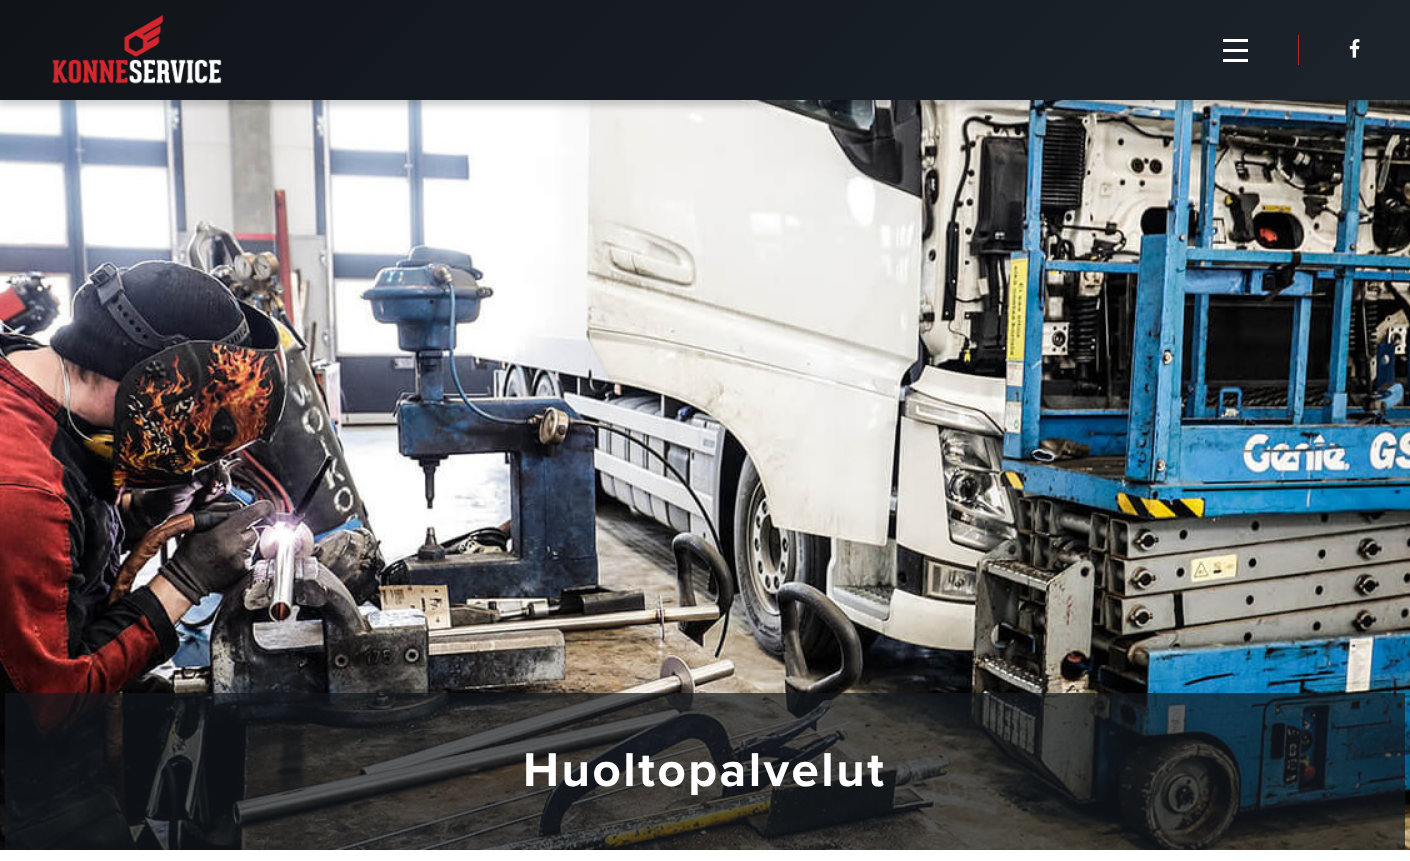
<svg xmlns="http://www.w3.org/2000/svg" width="1410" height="861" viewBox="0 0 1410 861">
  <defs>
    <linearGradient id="g1" gradientUnits="userSpaceOnUse" x1="1083" y1="428" x2="328" y2="-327"><stop offset="0" stop-color="rgb(28,35,43)"/><stop offset="1" stop-color="rgb(16,20,25)"/></linearGradient>
  </defs>
  <rect width="100%" height="100%" fill="rgb(255,255,255)"/>
  <image x="0" y="100" width="1410" height="750" href="pic3.png"/>
  <rect x="-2" y="1" width="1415" height="105" fill="rgba(19,24,30,0.2)" filter="blur(3px)"/>
  <rect x="0" y="0" width="1410" height="100" fill="url(#g1)"/>
  <image x="52" y="15" width="170" height="69" href="pic1.png"/>
  <rect x="1223" y="39" width="25" height="3" fill="rgb(255,255,255)"/>
  <rect x="1223" y="49" width="25" height="3" fill="rgb(255,255,255)"/>
  <rect x="1223" y="59" width="25" height="3" fill="rgb(255,255,255)"/>
  <rect x="1298" y="35" width="1" height="30" fill="rgb(187,35,41)"/>
  <image x="1349" y="39" width="11" height="19" href="pic2.png"/>
  <rect x="5" y="693" width="1400" height="157" fill="rgba(19,24,30,0.7)"/>
  <text x="523" y="786" font-family="Proxima Nova" font-size="49.25" font-weight="bold" letter-spacing="2.5" fill="rgb(255,255,255)">Huoltopalvelut</text>
</svg>
